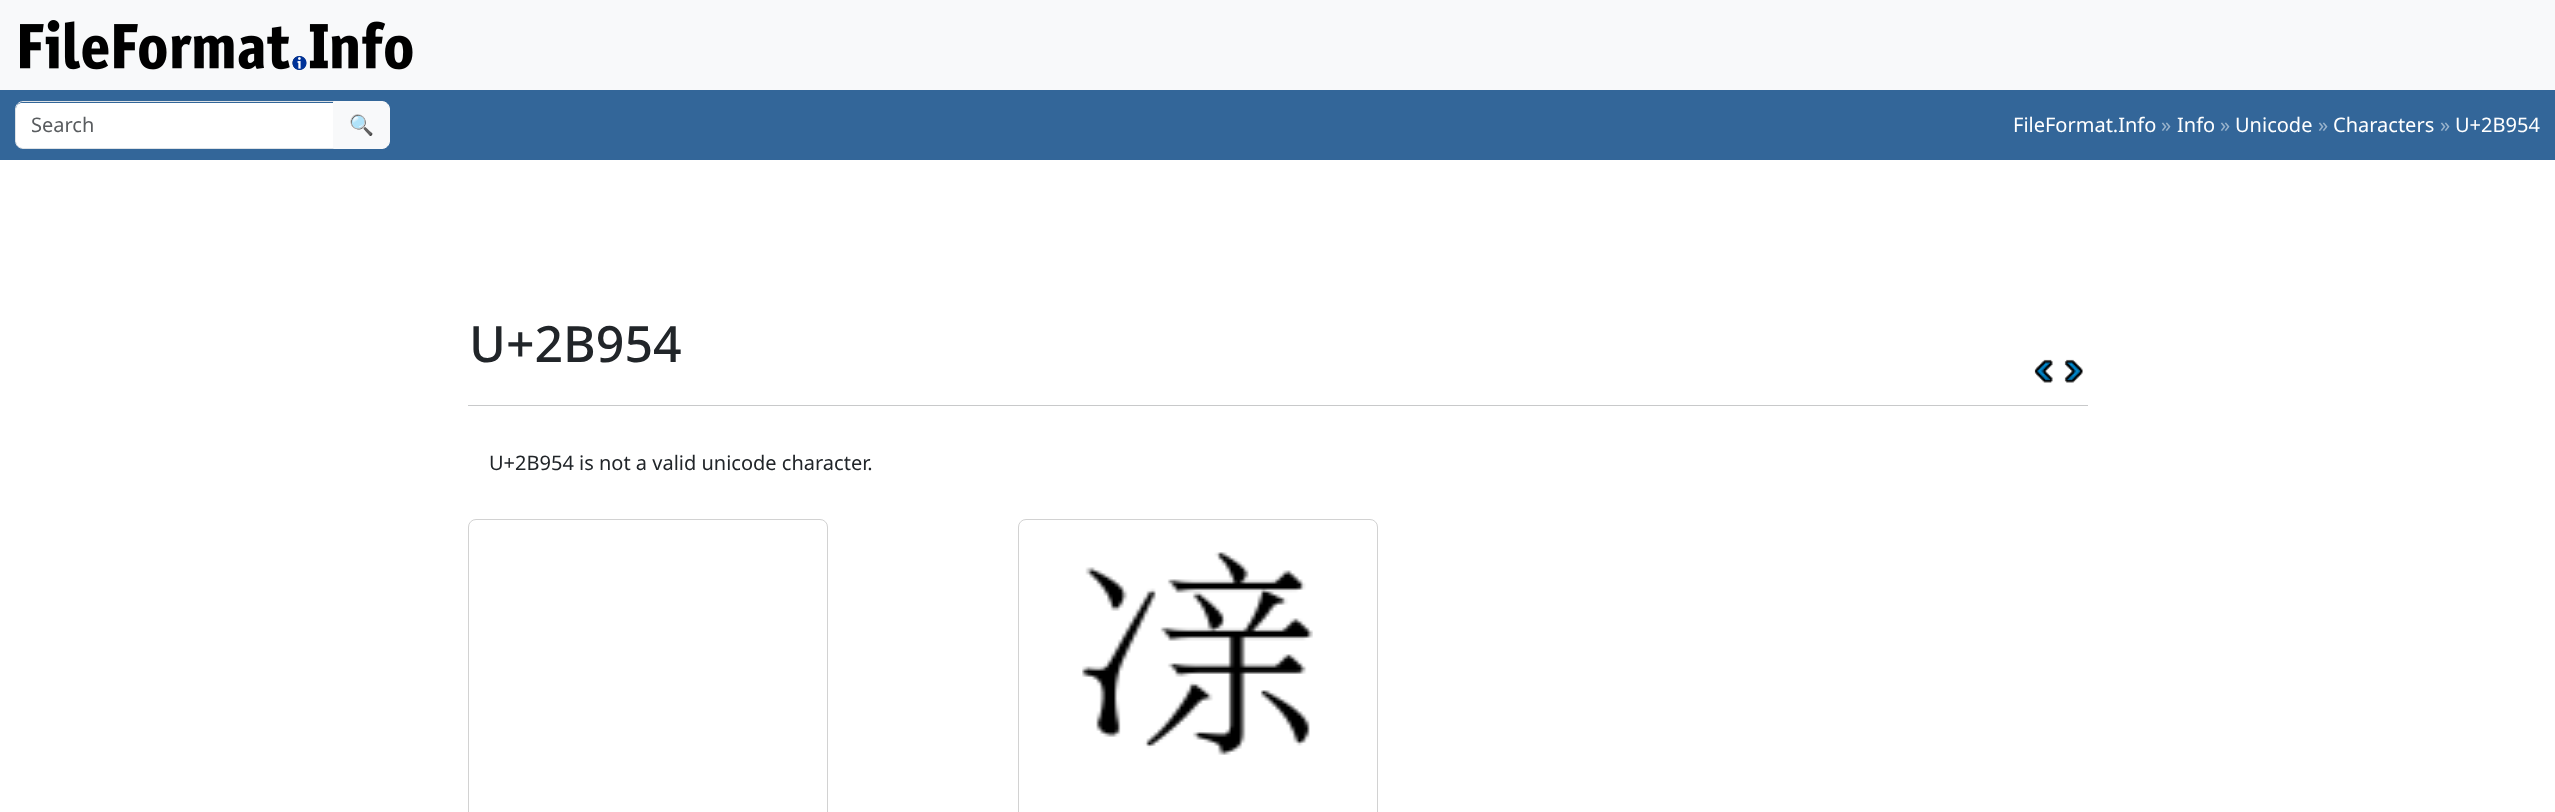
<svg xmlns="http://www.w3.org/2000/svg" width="2555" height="812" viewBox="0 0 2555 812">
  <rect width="100%" height="100%" fill="rgb(255,255,255)"/>
  <rect x="0" y="0" width="2555" height="90" fill="rgb(248,249,250)"/>
  <image x="20" y="20" width="393" height="50" href="pic1.png"/>
  <rect x="0" y="90" width="2555" height="70" fill="rgb(51,102,153)"/>
  <path d="M22 103H333V148H22C18.5 148 16 145.5 16 142V109C16 105.5 18.5 103 22 103Z" fill="rgb(255,255,255)"/>
  <path d="M23 101.5H333.5V148.5H23C19 148.5 15.5 145 15.5 141V109C15.5 105 19 101.5 23 101.5Z" fill="none" stroke="rgb(222,226,230)"/>
  <text x="31" y="132" font-family="Noto Sans" font-size="20" fill="rgb(89,92,95)">Search</text>
  <path d="M333.5 101.5H382C386 101.5 389.5 105 389.5 109V141C389.5 145 386 148.5 382 148.5H333.5Z" fill="rgb(248,249,250)" stroke="rgb(248,249,250)"/>
  <text x="349" y="132" font-family="Noto Color Emoji" font-size="20" fill="rgb(0,0,0)">🔍</text>
  <text x="2013" y="132" font-family="Noto Sans" font-size="20" fill="rgb(255,255,255)">FileFormat.Info</text>
  <text x="2161" y="132" font-family="Noto Sans" font-size="20" fill="rgb(153,179,204)">»</text>
  <text x="2177" y="132" font-family="Noto Sans" font-size="20" fill="rgb(255,255,255)">Info</text>
  <text x="2220" y="132" font-family="Noto Sans" font-size="20" fill="rgb(153,179,204)">»</text>
  <text x="2235" y="132" font-family="Noto Sans" font-size="20" fill="rgb(255,255,255)">Unicode</text>
  <text x="2318" y="132" font-family="Noto Sans" font-size="20" fill="rgb(153,179,204)">»</text>
  <text x="2333" y="132" font-family="Noto Sans" font-size="20" fill="rgb(255,255,255)">Characters</text>
  <text x="2440" y="132" font-family="Noto Sans" font-size="20" fill="rgb(153,179,204)">»</text>
  <text x="2455" y="132" font-family="Noto Sans" font-size="20" fill="rgb(255,255,255)">U+2B954</text>
  <text x="469" y="362" font-family="Noto Sans" font-size="50" font-weight="500" fill="rgb(33,37,41)">U+2B954</text>
  <image x="2034" y="359" width="19" height="24" href="pic2.png"/>
  <image x="2064" y="359" width="19" height="24" href="pic3.png"/>
  <rect x="468" y="405" width="1620" height="1" fill="rgb(200,201,202)"/>
  <text x="489" y="470" font-family="Noto Sans" font-size="20" fill="rgb(33,37,41)">U+2B954 is not a valid unicode character.</text>
  <rect x="468.5" y="519.5" width="359" height="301" rx="7.5" fill="none" stroke="rgb(210,210,210)"/>
  <rect x="1018.5" y="519.5" width="359" height="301" rx="7.5" fill="none" stroke="rgb(210,210,210)"/>
  <image x="1082" y="552" width="231" height="203" href="pic4.png"/>
</svg>
